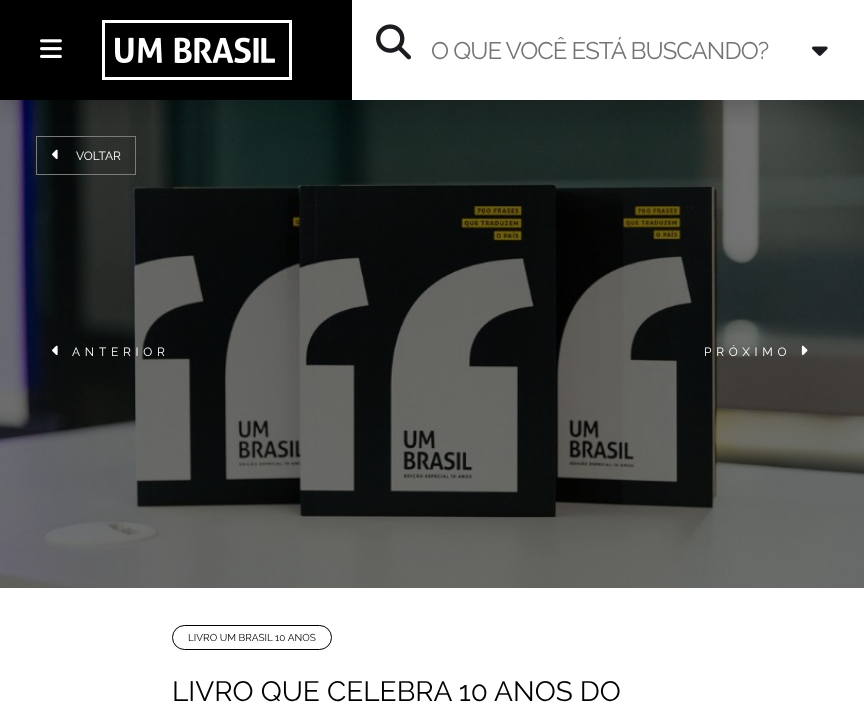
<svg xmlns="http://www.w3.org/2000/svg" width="864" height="707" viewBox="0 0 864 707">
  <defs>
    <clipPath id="clip1"><rect x="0" y="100" width="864" height="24"/></clipPath>
  </defs>
  <rect width="100%" height="100%" fill="rgb(255,255,255)"/>
  <image x="0" y="100" width="864" height="488" href="pic5.png"/>
  <rect x="36.5" y="136.5" width="99" height="38" fill="none" stroke="rgb(123,123,123)"/>
  <g clip-path="url(#clip1)">
    <rect x="0" y="4" width="864" height="100" fill="rgba(0,0,0,0.25)" filter="blur(14px)"/>
  </g>
  <rect x="0" y="0" width="352" height="100" fill="rgb(0,0,0)"/>
  <image x="40" y="39" width="22" height="19" href="pic1.png"/>
  <rect x="103.5" y="21.5" width="187" height="57" fill="none" stroke="rgb(255,255,255)" stroke-width="3"/>
  <image x="115" y="37" width="160" height="26" href="pic2.png"/>
  <image x="376" y="24" width="35" height="36" href="pic3.png"/>
  <text x="431" y="59" font-family="Raleway" font-size="24" letter-spacing="-0.95" fill="rgb(117,117,117)">O QUE VOCÊ ESTÁ BUSCANDO?</text>
  <image x="812" y="46" width="16" height="10" href="pic4.png"/>
  <image x="52" y="149" width="6" height="10" href="pic6.png"/>
  <text x="76" y="160" font-family="Raleway" font-size="12" fill="rgb(255,255,255)">VOLTAR</text>
  <image x="52" y="345" width="6" height="10" href="pic7.png"/>
  <g font-family="Raleway" font-size="12" letter-spacing="4.75" fill="rgb(255,255,255)">
    <text x="72" y="356">ANTERIOR</text>
    <text x="704" y="356">PRÓXIMO</text>
  </g>
  <image x="801" y="345" width="7" height="10" href="pic8.png"/>
  <rect x="172.5" y="625.5" width="159" height="24" rx="12" fill="none" stroke="rgb(0,0,0)"/>
  <text x="188" y="641" font-family="Raleway" font-size="10" fill="rgb(0,0,0)">LIVRO UM BRASIL 10 ANOS</text>
  <text x="172" y="701" font-family="Raleway" font-size="28" fill="rgb(0,0,0)">LIVRO QUE CELEBRA 10 ANOS DO</text>
</svg>
